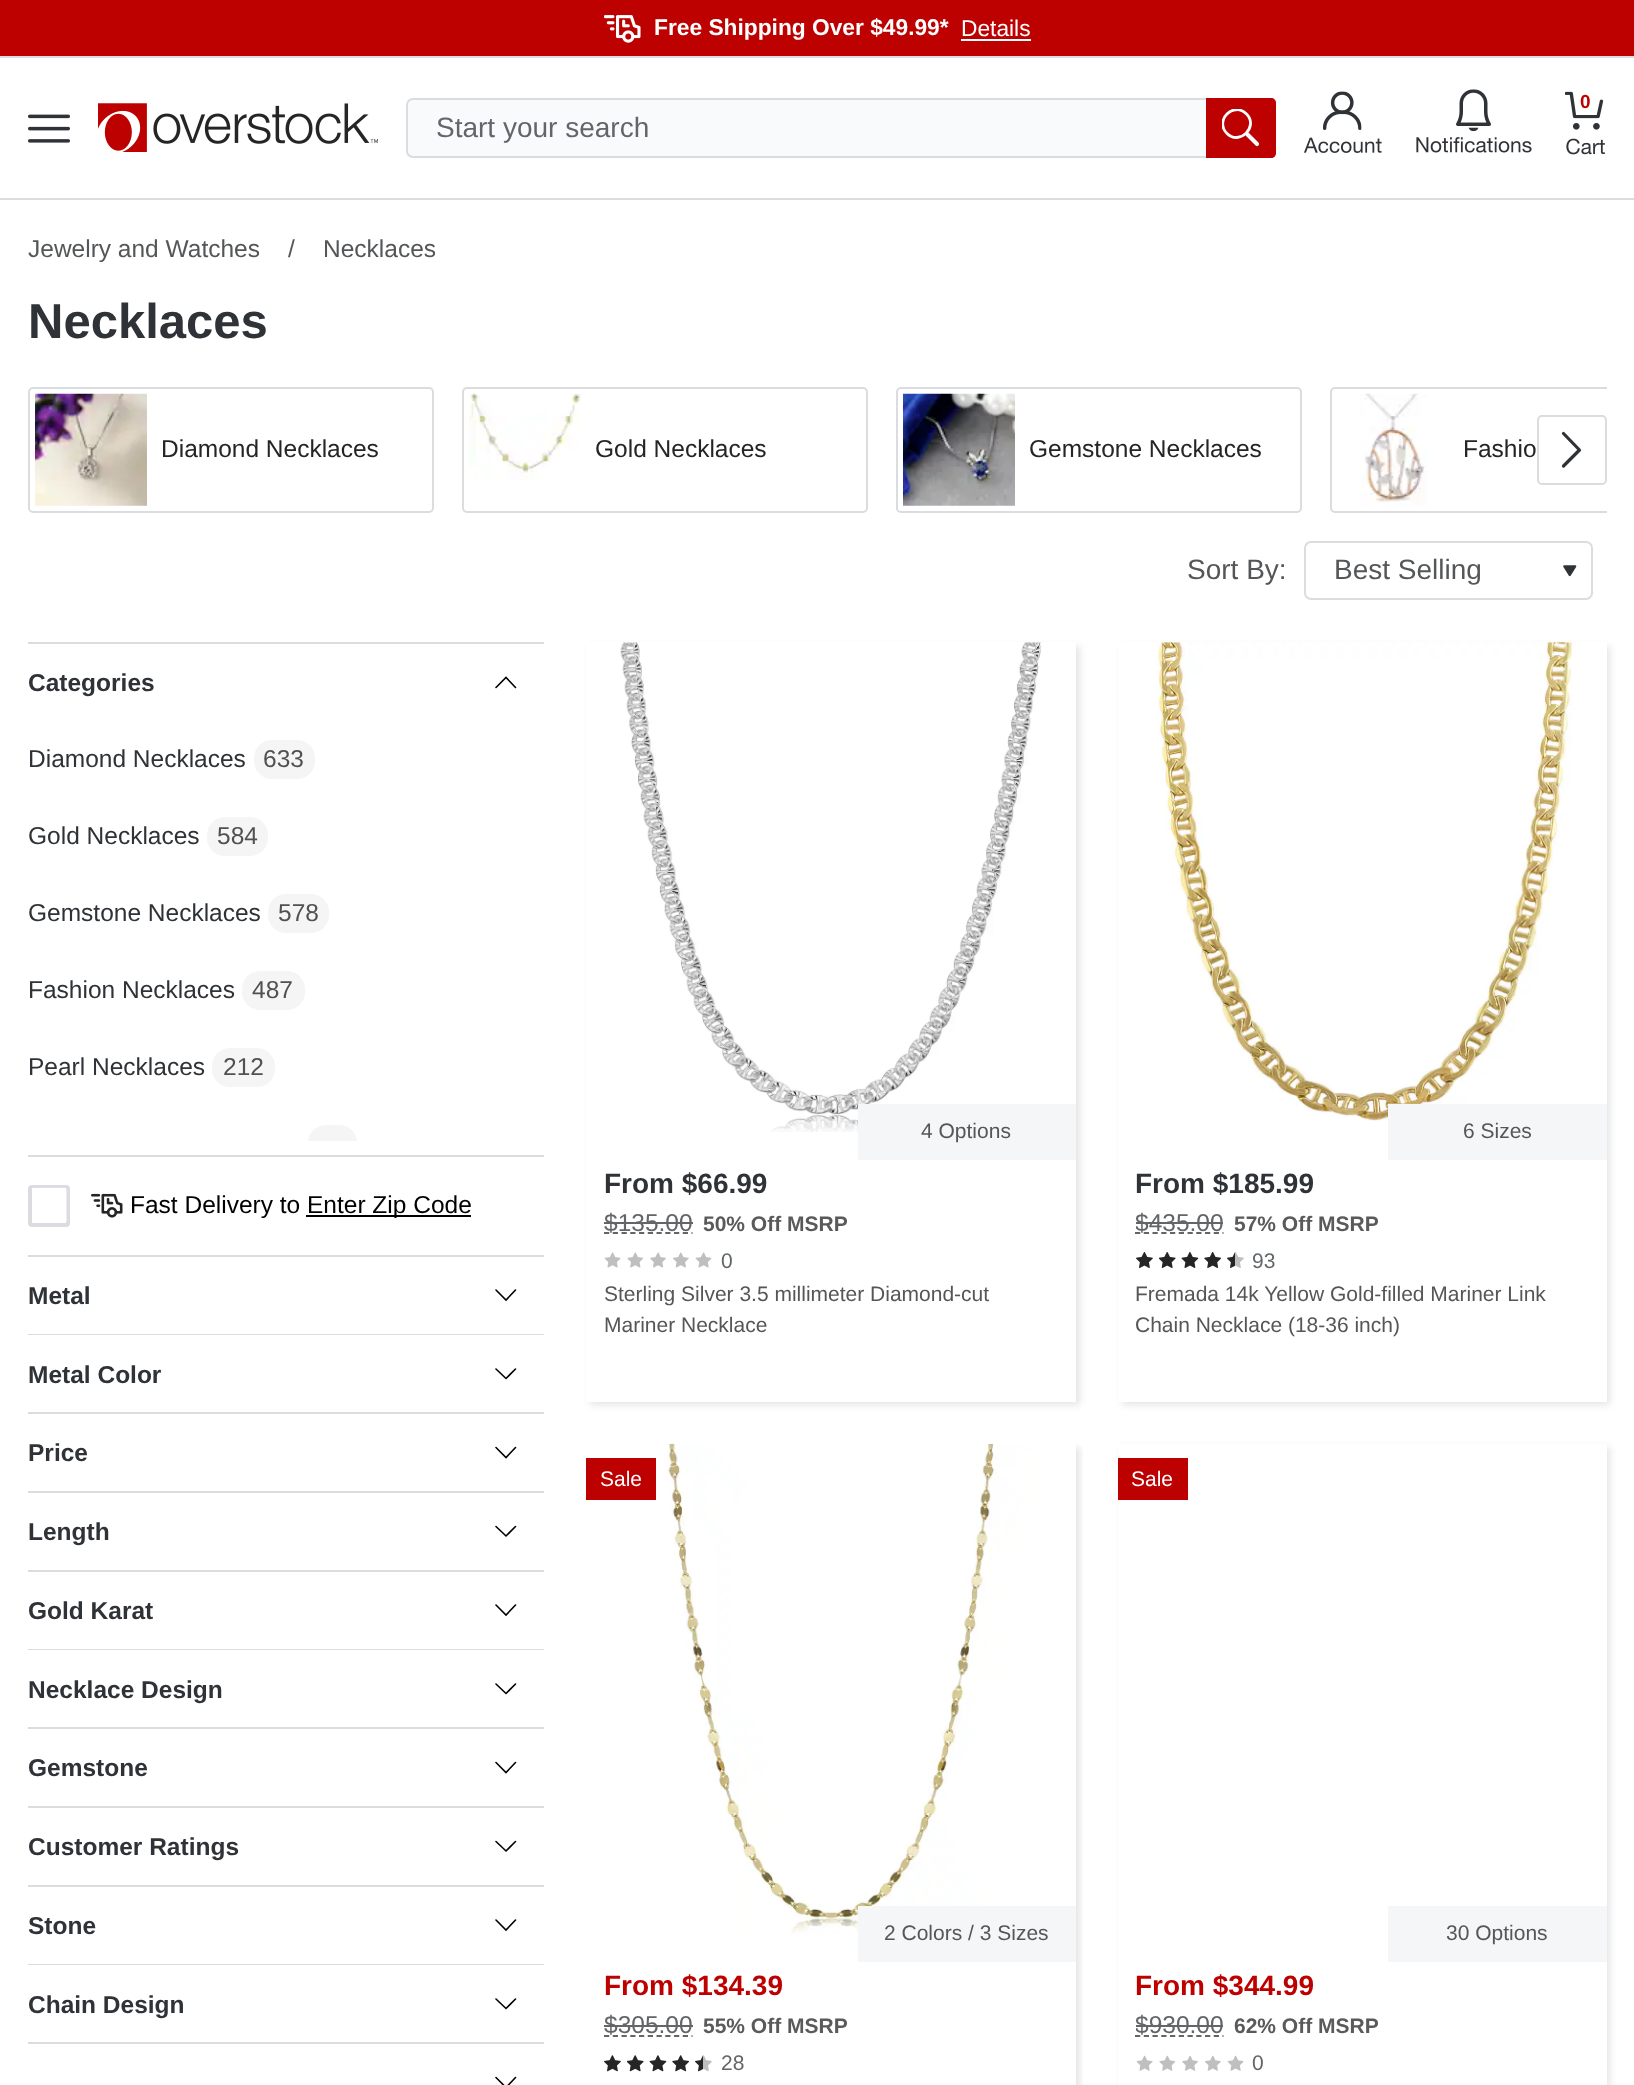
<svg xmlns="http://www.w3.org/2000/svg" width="1634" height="2085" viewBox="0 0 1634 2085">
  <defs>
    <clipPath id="clip1"><rect x="1222" y="109" width="38" height="38"/></clipPath>
    <clipPath id="clip2"><rect x="28" y="387" width="1579" height="126"/></clipPath>
    <clipPath id="clip3"><path d="M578 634H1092V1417H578ZM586 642H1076V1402H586Z" clip-rule="evenodd"/></clipPath>
    <clipPath id="clip4"><path d="M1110 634H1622V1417H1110ZM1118 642H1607V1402H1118Z" clip-rule="evenodd"/></clipPath>
    <clipPath id="clip5"><rect x="1136" y="1150" width="453" height="191"/></clipPath>
    <clipPath id="clip6"><rect x="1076" y="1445" width="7" height="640"/></clipPath>
    <clipPath id="clip7"><path d="M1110 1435H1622V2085H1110ZM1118 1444H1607V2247H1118Z" clip-rule="evenodd"/></clipPath>
    <clipPath id="clip8"><rect x="1136" y="1951" width="453" height="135"/></clipPath>
  </defs>
  <rect width="100%" height="100%" fill="rgb(255,255,255)"/>
  <rect x="0" y="0" width="1634" height="56" fill="rgb(189,0,0)"/>
  <image x="604" y="15" width="37" height="28" href="pic1.png"/>
  <text x="654" y="35" font-family="Liberation Sans" font-size="22.75" font-weight="bold" fill="rgb(255,255,255)">Free Shipping Over $49.99*</text>
  <text x="961" y="36" font-family="Liberation Sans" font-size="22.75" fill="rgb(255,255,255)">Details</text>
  <rect x="961" y="39" width="70" height="2" fill="rgb(255,255,255)"/>
  <rect x="0" y="56" width="1634" height="2" fill="rgb(218,220,223)"/>
  <rect x="0" y="198" width="1634" height="2" fill="rgb(218,220,223)"/>
  <image x="1304" y="91" width="78" height="62" href="pic2.png"/>
  <image x="1416" y="89" width="116" height="64" href="pic3.png"/>
  <image x="1565" y="91" width="40" height="64" href="pic4.png"/>
  <text x="1580" y="108" font-family="Liberation Sans" font-size="19" font-weight="bold" fill="rgb(189,0,0)">0</text>
  <image x="28" y="114" width="42" height="29" href="pic5.png"/>
  <image x="98" y="103" width="280" height="49" href="pic6.png"/>
  <rect x="407" y="99" width="868" height="58" rx="6" fill="rgb(249,250,251)" stroke="rgb(218,220,223)" stroke-width="2"/>
  <text x="436" y="137" font-family="Liberation Sans" font-size="28" fill="rgb(98,102,105)">Start your search</text>
  <path d="M1206 98H1271C1274 98 1276 100 1276 103V153C1276 156 1274 158 1271 158H1206Z" fill="rgb(189,0,0)"/>
  <path d="M1257 144L1247.5 134.5" fill="none" stroke="rgb(255,255,255)" stroke-width="4.1" stroke-linecap="round"/>
  <g clip-path="url(#clip1)">
    <path d="M1246.5 114C1259 126.5 1239.5 146 1227 133.5C1214 120.5 1233.5 101 1246.5 114Z" fill="none" stroke="rgb(255,255,255)" stroke-width="2.8"/>
  </g>
  <g font-family="Liberation Sans" font-size="24.5" fill="rgb(84,86,88)">
    <text x="28" y="257">Jewelry and Watches</text>
    <text x="288" y="257">/</text>
    <text x="323" y="257">Necklaces</text>
  </g>
  <text x="28" y="338" font-family="Liberation Sans" font-size="49" font-weight="bold" fill="rgb(47,51,55)">Necklaces</text>
  <rect x="29" y="388" width="404" height="124" rx="4" fill="none" stroke="rgb(218,220,223)" stroke-width="2"/>
  <image x="35" y="393" width="112" height="113" href="pic7.png"/>
  <text x="161" y="457" font-family="Liberation Sans" font-size="24.5" fill="rgb(37,37,37)">Diamond Necklaces</text>
  <rect x="463" y="388" width="404" height="124" rx="4" fill="none" stroke="rgb(218,220,223)" stroke-width="2"/>
  <image x="469" y="393" width="112" height="88" href="pic8.png"/>
  <text x="595" y="457" font-family="Liberation Sans" font-size="24.5" fill="rgb(37,37,37)">Gold Necklaces</text>
  <rect x="897" y="388" width="404" height="124" rx="4" fill="none" stroke="rgb(218,220,223)" stroke-width="2"/>
  <image x="903" y="393" width="112" height="113" href="pic9.png"/>
  <text x="1029" y="457" font-family="Liberation Sans" font-size="24.5" fill="rgb(37,37,37)">Gemstone Necklaces</text>
  <g clip-path="url(#clip2)">
    <rect x="1331" y="388" width="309" height="124" rx="4" fill="none" stroke="rgb(218,220,223)" stroke-width="2"/>
  </g>
  <image x="1359" y="393" width="68" height="113" href="pic10.png"/>
  <text x="1463" y="457" font-family="Liberation Sans" font-size="24.5" fill="rgb(37,37,37)">Fashio</text>
  <rect x="1538" y="416" width="68" height="68" rx="4" fill="none" stroke="rgb(218,220,223)" stroke-width="2"/>
  <path d="M1563.5 466L1579.5 450L1563.5 433.5" fill="none" stroke="rgb(47,51,55)" stroke-width="3.2" stroke-linecap="round" stroke-linejoin="round"/>
  <text x="1187" y="579" font-family="Liberation Sans" font-size="28" fill="rgb(84,86,88)">Sort By:</text>
  <image x="1563" y="565" width="14" height="12" href="pic11.png"/>
  <rect x="1305" y="542" width="287" height="57" rx="6" fill="none" stroke="rgb(218,220,223)" stroke-width="2"/>
  <text x="1334" y="579" font-family="Liberation Sans" font-size="28" fill="rgb(84,86,88)">Best Selling</text>
  <rect x="28" y="642" width="516" height="2" fill="rgb(218,220,223)"/>
  <text x="28" y="691" font-family="Liberation Sans" font-size="24.5" font-weight="bold" fill="rgb(47,51,55)">Categories</text>
  <path d="M496 687.5L506 677.5L515.5 687.5" fill="none" stroke="rgb(0,0,0)" stroke-width="1.6" stroke-linecap="round"/>
  <text x="28" y="767" font-family="Liberation Sans" font-size="24.5" fill="rgb(47,51,55)">Diamond Necklaces</text>
  <rect x="254" y="740" width="61" height="39" rx="18" fill="rgb(245,245,245)"/>
  <text x="263" y="767" font-family="Liberation Sans" font-size="24.5" fill="rgb(81,81,81)">633</text>
  <text x="28" y="844" font-family="Liberation Sans" font-size="24.5" fill="rgb(47,51,55)">Gold Necklaces</text>
  <rect x="207" y="817" width="61" height="39" rx="18" fill="rgb(245,245,245)"/>
  <text x="217" y="844" font-family="Liberation Sans" font-size="24.5" fill="rgb(81,81,81)">584</text>
  <text x="28" y="921" font-family="Liberation Sans" font-size="24.5" fill="rgb(47,51,55)">Gemstone Necklaces</text>
  <rect x="268" y="894" width="61" height="39" rx="18" fill="rgb(245,245,245)"/>
  <text x="278" y="921" font-family="Liberation Sans" font-size="24.5" fill="rgb(81,81,81)">578</text>
  <text x="28" y="998" font-family="Liberation Sans" font-size="24.5" fill="rgb(47,51,55)">Fashion Necklaces</text>
  <rect x="242" y="971" width="63" height="39" rx="18" fill="rgb(245,245,245)"/>
  <text x="252" y="998" font-family="Liberation Sans" font-size="24.5" fill="rgb(81,81,81)">487</text>
  <text x="28" y="1075" font-family="Liberation Sans" font-size="24.5" fill="rgb(47,51,55)">Pearl Necklaces</text>
  <rect x="212" y="1048" width="63" height="39" rx="18" fill="rgb(245,245,245)"/>
  <text x="223" y="1075" font-family="Liberation Sans" font-size="24.5" fill="rgb(81,81,81)">212</text>
  <path d="M326 1125H339C349 1125 357 1133 357 1143V1141H308V1143C308 1133 316 1125 326 1125Z" fill="rgb(245,245,245)"/>
  <rect x="28" y="1155" width="516" height="2" fill="rgb(218,220,223)"/>
  <rect x="30" y="1187" width="38" height="38" rx="2" fill="none" stroke="rgb(218,220,223)" stroke-width="4"/>
  <image x="32" y="1187" width="35" height="35" href="pic12.png"/>
  <image x="91" y="1193" width="32" height="25" href="pic13.png"/>
  <text x="130" y="1213" font-family="Liberation Sans" font-size="24.5" fill="rgb(0,0,0)">Fast Delivery to</text>
  <rect x="306" y="1215" width="165" height="2" fill="rgb(0,0,0)"/>
  <text x="307" y="1213" font-family="Liberation Sans" font-size="24.5" fill="rgb(0,0,0)">Enter Zip Code</text>
  <rect x="28" y="1255" width="516" height="2" fill="rgb(218,220,223)"/>
  <text x="28" y="1304" font-family="Liberation Sans" font-size="24.5" font-weight="bold" fill="rgb(47,51,55)">Metal</text>
  <path d="M515.5 1290L506 1300L496 1290" fill="none" stroke="rgb(0,0,0)" stroke-width="1.6" stroke-linecap="round"/>
  <rect x="28" y="1334" width="516" height="1" fill="rgb(218,220,223)"/>
  <text x="28" y="1383" font-family="Liberation Sans" font-size="24.5" font-weight="bold" fill="rgb(47,51,55)">Metal Color</text>
  <path d="M515.5 1369L506 1378.5L496 1369" fill="none" stroke="rgb(0,0,0)" stroke-width="1.6" stroke-linecap="round"/>
  <rect x="28" y="1412" width="516" height="2" fill="rgb(218,220,223)"/>
  <text x="28" y="1461" font-family="Liberation Sans" font-size="24.5" font-weight="bold" fill="rgb(47,51,55)">Price</text>
  <path d="M515.5 1447.5L506 1457.5L496 1447.5" fill="none" stroke="rgb(0,0,0)" stroke-width="1.6" stroke-linecap="round"/>
  <rect x="28" y="1491" width="516" height="2" fill="rgb(218,220,223)"/>
  <text x="28" y="1540" font-family="Liberation Sans" font-size="24.5" font-weight="bold" fill="rgb(47,51,55)">Length</text>
  <path d="M515.5 1526.5L506 1536L496 1526.5" fill="none" stroke="rgb(0,0,0)" stroke-width="1.6" stroke-linecap="round"/>
  <rect x="28" y="1570" width="516" height="2" fill="rgb(218,220,223)"/>
  <text x="28" y="1619" font-family="Liberation Sans" font-size="24.5" font-weight="bold" fill="rgb(47,51,55)">Gold Karat</text>
  <path d="M515.5 1605L506 1615L496 1605" fill="none" stroke="rgb(0,0,0)" stroke-width="1.6" stroke-linecap="round"/>
  <rect x="28" y="1649" width="516" height="1" fill="rgb(218,220,223)"/>
  <text x="28" y="1698" font-family="Liberation Sans" font-size="24.5" font-weight="bold" fill="rgb(47,51,55)">Necklace Design</text>
  <path d="M515.5 1684L506 1693.5L496 1684" fill="none" stroke="rgb(0,0,0)" stroke-width="1.6" stroke-linecap="round"/>
  <rect x="28" y="1727" width="516" height="2" fill="rgb(218,220,223)"/>
  <text x="28" y="1776" font-family="Liberation Sans" font-size="24.5" font-weight="bold" fill="rgb(47,51,55)">Gemstone</text>
  <path d="M515.5 1762.5L506 1772.5L496 1762.5" fill="none" stroke="rgb(0,0,0)" stroke-width="1.6" stroke-linecap="round"/>
  <rect x="28" y="1806" width="516" height="2" fill="rgb(218,220,223)"/>
  <text x="28" y="1855" font-family="Liberation Sans" font-size="24.5" font-weight="bold" fill="rgb(47,51,55)">Customer Ratings</text>
  <path d="M515.5 1841.5L506 1851L496 1841.5" fill="none" stroke="rgb(0,0,0)" stroke-width="1.6" stroke-linecap="round"/>
  <rect x="28" y="1885" width="516" height="2" fill="rgb(218,220,223)"/>
  <text x="28" y="1934" font-family="Liberation Sans" font-size="24.5" font-weight="bold" fill="rgb(47,51,55)">Stone</text>
  <path d="M515.5 1920L506 1930L496 1920" fill="none" stroke="rgb(0,0,0)" stroke-width="1.6" stroke-linecap="round"/>
  <rect x="28" y="1964" width="516" height="1" fill="rgb(218,220,223)"/>
  <text x="28" y="2013" font-family="Liberation Sans" font-size="24.5" font-weight="bold" fill="rgb(47,51,55)">Chain Design</text>
  <path d="M515.5 1999L506 2008.5L496 1999" fill="none" stroke="rgb(0,0,0)" stroke-width="1.6" stroke-linecap="round"/>
  <rect x="28" y="2042" width="516" height="2" fill="rgb(218,220,223)"/>
  <path d="M515.5 2077.5L506 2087.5L496 2077.5" fill="none" stroke="rgb(0,0,0)" stroke-width="1.6" stroke-linecap="round"/>
  <g clip-path="url(#clip3)">
    <rect x="590" y="646" width="490" height="759" fill="rgba(0,0,0,0.1)" filter="blur(3.5px)"/>
  </g>
  <image x="620" y="642" width="422" height="490" href="pic14.png"/>
  <rect x="858" y="1104" width="218" height="56" fill="rgb(245,246,247)"/>
  <text x="921" y="1138" font-family="Liberation Sans" font-size="21" fill="rgb(84,86,88)">4 Options</text>
  <text x="604" y="1193" font-family="Liberation Sans" font-size="28" font-weight="bold" fill="rgb(47,51,55)">From $66.99</text>
  <path d="M604 1233H692.5" fill="none" stroke="rgb(98,102,105)" stroke-width="1.8" stroke-dasharray="5.25 3.5"/>
  <text x="604" y="1231" font-family="Liberation Sans" font-size="24.5" fill="rgb(98,102,105)">$135.00</text>
  <rect x="604" y="1222" width="89" height="2" fill="rgb(98,102,105)"/>
  <text x="703" y="1231" font-family="Liberation Sans" font-size="21" font-weight="bold" fill="rgb(90,90,90)">50% Off MSRP</text>
  <image x="604" y="1252" width="17" height="16" href="pic15.png"/>
  <image x="627" y="1252" width="17" height="16" href="pic16.png"/>
  <image x="650" y="1252" width="16" height="16" href="pic17.png"/>
  <image x="673" y="1252" width="16" height="16" href="pic18.png"/>
  <image x="695" y="1252" width="17" height="16" href="pic15.png"/>
  <text x="721" y="1268" font-family="Liberation Sans" font-size="21" fill="rgb(98,102,105)">0</text>
  <g font-family="Liberation Sans" font-size="21" fill="rgb(84,86,88)">
    <text>
      <tspan x="604" y="1301">Sterling Silver 3.5 millimeter Diamond-cut</tspan>
      <tspan x="604" y="1332">Mariner Necklace</tspan>
    </text>
  </g>
  <g clip-path="url(#clip4)">
    <rect x="1122" y="646" width="488" height="759" fill="rgba(0,0,0,0.1)" filter="blur(3.5px)"/>
  </g>
  <image x="1156" y="642" width="417" height="479" href="pic19.png"/>
  <rect x="1388" y="1104" width="219" height="56" fill="rgb(245,246,247)"/>
  <text x="1463" y="1138" font-family="Liberation Sans" font-size="21" fill="rgb(84,86,88)">6 Sizes</text>
  <text x="1135" y="1193" font-family="Liberation Sans" font-size="28" font-weight="bold" fill="rgb(47,51,55)">From $185.99</text>
  <path d="M1135 1233H1223.5" fill="none" stroke="rgb(98,102,105)" stroke-width="1.8" stroke-dasharray="5.25 3.5"/>
  <g clip-path="url(#clip5)">
    <text x="1135" y="1231" font-family="Liberation Sans" font-size="24.5" fill="rgb(98,102,105)">$435.00</text>
  </g>
  <rect x="1136" y="1222" width="87" height="2" fill="rgb(98,102,105)"/>
  <text x="1234" y="1231" font-family="Liberation Sans" font-size="21" font-weight="bold" fill="rgb(90,90,90)">57% Off MSRP</text>
  <image x="1136" y="1252" width="17" height="16" href="pic20.png"/>
  <image x="1159" y="1252" width="17" height="16" href="pic21.png"/>
  <image x="1181" y="1252" width="18" height="16" href="pic22.png"/>
  <image x="1204" y="1252" width="17" height="16" href="pic23.png"/>
  <image x="1227" y="1252" width="17" height="16" href="pic24.png"/>
  <text x="1252" y="1268" font-family="Liberation Sans" font-size="21" fill="rgb(98,102,105)">93</text>
  <g font-family="Liberation Sans" font-size="21" fill="rgb(84,86,88)">
    <text>
      <tspan x="1135" y="1301">Fremada 14k Yellow Gold-filled Mariner Link</tspan>
      <tspan x="1135" y="1332">Chain Necklace (18-36 inch)</tspan>
    </text>
  </g>
  <g clip-path="url(#clip6)">
    <rect x="590" y="1447" width="490" height="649" fill="rgba(0,0,0,0.1)" filter="blur(3.5px)"/>
  </g>
  <image x="666" y="1443" width="376" height="491" href="pic25.png"/>
  <rect x="586" y="1458" width="70" height="42" fill="rgb(189,0,0)"/>
  <text x="600" y="1486" font-family="Liberation Sans" font-size="21" fill="rgb(255,255,255)">Sale</text>
  <text x="604" y="1995" font-family="Liberation Sans" font-size="28" font-weight="bold" fill="rgb(189,0,0)">From $134.39</text>
  <text x="604" y="2033" font-family="Liberation Sans" font-size="24.5" fill="rgb(98,102,105)">$305.00</text>
  <path d="M604 2036H692.5" fill="none" stroke="rgb(98,102,105)" stroke-width="1.8" stroke-dasharray="5.25 3.5"/>
  <rect x="604" y="2025" width="89" height="2" fill="rgb(98,102,105)"/>
  <text x="703" y="2033" font-family="Liberation Sans" font-size="21" font-weight="bold" fill="rgb(90,90,90)">55% Off MSRP</text>
  <image x="604" y="2055" width="17" height="17" href="pic26.png"/>
  <image x="627" y="2055" width="17" height="17" href="pic27.png"/>
  <image x="649" y="2055" width="18" height="17" href="pic28.png"/>
  <image x="672" y="2055" width="17" height="17" href="pic29.png"/>
  <image x="695" y="2055" width="17" height="17" href="pic30.png"/>
  <text x="721" y="2070" font-family="Liberation Sans" font-size="21" fill="rgb(98,102,105)">28</text>
  <rect x="858" y="1906" width="218" height="56" fill="rgb(245,246,247)"/>
  <text x="884" y="1940" font-family="Liberation Sans" font-size="21" fill="rgb(84,86,88)">2 Colors / 3 Sizes</text>
  <g clip-path="url(#clip7)">
    <rect x="1122" y="1447" width="488" height="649" fill="rgba(0,0,0,0.1)" filter="blur(3.5px)"/>
  </g>
  <rect x="1118" y="1458" width="70" height="42" fill="rgb(189,0,0)"/>
  <text x="1131" y="1486" font-family="Liberation Sans" font-size="21" fill="rgb(255,255,255)">Sale</text>
  <text x="1135" y="1995" font-family="Liberation Sans" font-size="28" font-weight="bold" fill="rgb(189,0,0)">From $344.99</text>
  <g clip-path="url(#clip8)">
    <text x="1135" y="2033" font-family="Liberation Sans" font-size="24.5" fill="rgb(98,102,105)">$930.00</text>
  </g>
  <path d="M1135 2036H1223.5" fill="none" stroke="rgb(98,102,105)" stroke-width="1.8" stroke-dasharray="5.25 3.5"/>
  <rect x="1136" y="2025" width="87" height="2" fill="rgb(98,102,105)"/>
  <text x="1234" y="2033" font-family="Liberation Sans" font-size="21" font-weight="bold" fill="rgb(90,90,90)">62% Off MSRP</text>
  <image x="1136" y="2055" width="17" height="16" href="pic31.png"/>
  <image x="1159" y="2055" width="17" height="16" href="pic32.png"/>
  <image x="1182" y="2055" width="16" height="16" href="pic33.png"/>
  <image x="1205" y="2055" width="16" height="16" href="pic34.png"/>
  <image x="1227" y="2055" width="17" height="16" href="pic31.png"/>
  <text x="1252" y="2070" font-family="Liberation Sans" font-size="21" fill="rgb(98,102,105)">0</text>
  <rect x="1388" y="1906" width="219" height="56" fill="rgb(245,246,247)"/>
  <text x="1446" y="1940" font-family="Liberation Sans" font-size="21" fill="rgb(84,86,88)">30 Options</text>
</svg>
